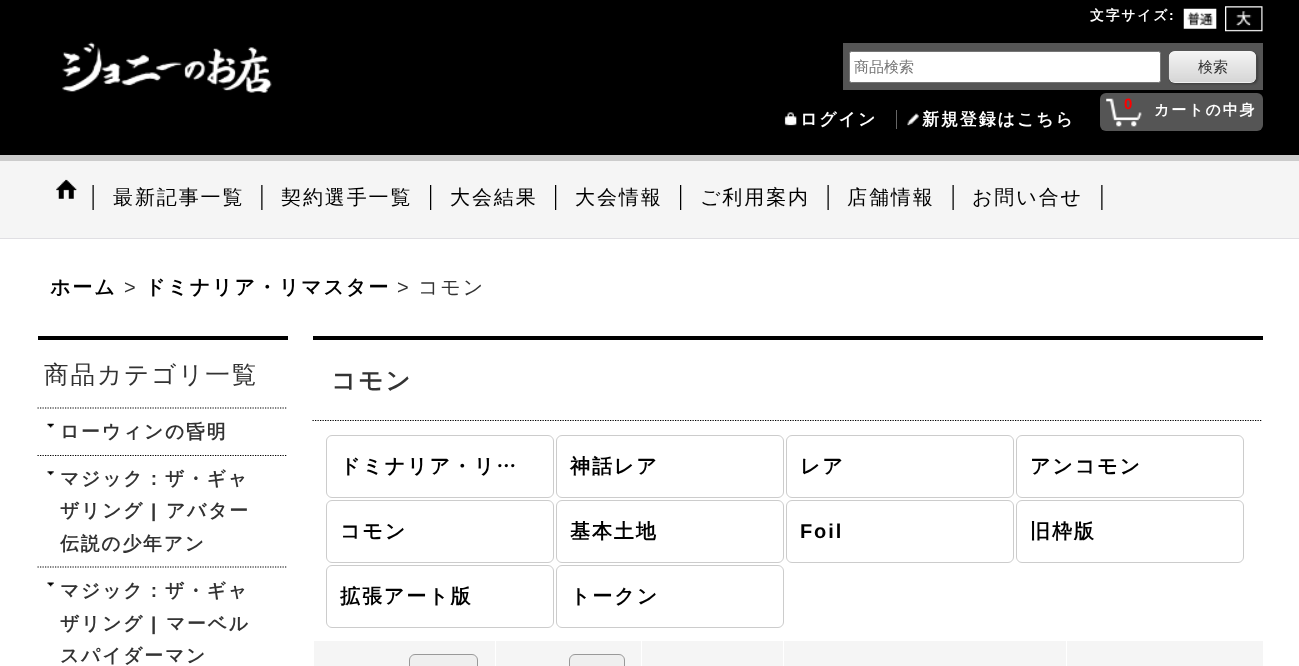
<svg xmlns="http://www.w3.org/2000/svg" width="1299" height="666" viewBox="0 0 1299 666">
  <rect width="100%" height="100%" fill="rgb(255,255,255)"/>
  <rect x="0" y="0" width="1299" height="155" fill="rgb(0,0,0)"/>
  <text x="1090" y="20" font-family="WenQuanYi Zen Hei" font-size="13.75" font-weight="bold" letter-spacing="1.9" fill="rgb(255,255,255)">文字サイズ</text>
  <text x="1169" y="20" font-family="Liberation Sans" font-size="13.75" font-weight="bold" letter-spacing="1.9" fill="rgb(255,255,255)">:</text>
  <image x="1183" y="8" width="34" height="21" href="pic1.png"/>
  <image x="1225" y="6" width="38" height="26" href="pic2.png"/>
  <image x="62" y="42" width="210" height="51" href="pic3.png"/>
  <rect x="843" y="43" width="420" height="47" fill="rgb(85,85,85)"/>
  <rect x="849.5" y="51.5" width="311" height="31" rx="2" fill="rgb(255,255,255)" stroke="rgb(118,118,118)"/>
  <text x="854" y="72" font-family="WenQuanYi Zen Hei" font-size="15" font-weight="500" fill="rgb(117,117,117)">商品検索</text>
  <rect x="1170" y="53" width="88" height="31" rx="6" fill="rgba(0,0,0,0.3)" filter="blur(1px)"/>
  <rect x="1169" y="51" width="87" height="32" rx="6" fill="rgb(249,249,249)"/>
  <image x="1168" y="51" width="89" height="32" href="pic4.png"/>
  <text x="1198" y="72" font-family="WenQuanYi Zen Hei" font-size="15" font-weight="500" fill="rgb(51,51,51)">検索</text>
  <rect x="1100" y="93" width="163" height="38" rx="6" fill="rgb(85,85,85)"/>
  <image x="1106" y="98" width="36" height="29" href="pic5.png"/>
  <text x="1124" y="109" font-family="Liberation Sans" font-size="15" font-weight="bold" letter-spacing="1.9" fill="rgb(255,0,0)">0</text>
  <text x="1154" y="115" font-family="WenQuanYi Zen Hei" font-size="15" font-weight="bold" letter-spacing="1.9" fill="rgb(255,255,255)">カートの中身</text>
  <image x="784" y="112" width="13" height="14" href="pic6.png"/>
  <text x="800" y="125" font-family="WenQuanYi Zen Hei" font-size="17" font-weight="bold" letter-spacing="1.9" fill="rgb(255,255,255)">ログイン</text>
  <rect x="896" y="110" width="1" height="19" fill="rgb(102,102,102)"/>
  <image x="907" y="113" width="12" height="13" href="pic7.png"/>
  <text x="922" y="125" font-family="WenQuanYi Zen Hei" font-size="17" font-weight="bold" letter-spacing="1.9" fill="rgb(255,255,255)">新規登録はこちら</text>
  <rect x="0" y="161" width="1299" height="77" fill="rgb(245,245,245)"/>
  <rect x="0" y="155" width="1299" height="6" fill="rgb(204,204,204)"/>
  <rect x="0" y="238" width="1299" height="1" fill="rgb(224,223,227)"/>
  <image x="92" y="185" width="2" height="25" href="pic8.png"/>
  <image x="56" y="179" width="21" height="20" href="pic9.png"/>
  <image x="261" y="185" width="2" height="25" href="pic10.png"/>
  <text x="113" y="204" font-family="WenQuanYi Zen Hei" font-size="20" font-weight="500" letter-spacing="1.9" fill="rgb(0,0,0)">最新記事一覧</text>
  <image x="430" y="185" width="2" height="25" href="pic11.png"/>
  <text x="281" y="204" font-family="WenQuanYi Zen Hei" font-size="20" font-weight="500" letter-spacing="1.9" fill="rgb(0,0,0)">契約選手一覧</text>
  <image x="555" y="185" width="2" height="25" href="pic11.png"/>
  <text x="450" y="204" font-family="WenQuanYi Zen Hei" font-size="20" font-weight="500" letter-spacing="1.9" fill="rgb(0,0,0)">大会結果</text>
  <image x="680" y="185" width="2" height="25" href="pic11.png"/>
  <text x="575" y="204" font-family="WenQuanYi Zen Hei" font-size="20" font-weight="500" letter-spacing="1.9" fill="rgb(0,0,0)">大会情報</text>
  <image x="827" y="185" width="2" height="25" href="pic8.png"/>
  <text x="700" y="204" font-family="WenQuanYi Zen Hei" font-size="20" font-weight="500" letter-spacing="1.9" fill="rgb(0,0,0)">ご利用案内</text>
  <image x="952" y="185" width="2" height="25" href="pic8.png"/>
  <text x="847" y="204" font-family="WenQuanYi Zen Hei" font-size="20" font-weight="500" letter-spacing="1.9" fill="rgb(0,0,0)">店舗情報</text>
  <image x="1101" y="185" width="2" height="25" href="pic10.png"/>
  <text x="972" y="204" font-family="WenQuanYi Zen Hei" font-size="20" font-weight="500" letter-spacing="1.9" fill="rgb(0,0,0)">お問い合せ</text>
  <text x="50" y="294" font-family="WenQuanYi Zen Hei" font-size="20" font-weight="bold" letter-spacing="1.9" fill="rgb(0,0,0)">ホーム</text>
  <text x="124" y="294" font-family="Liberation Sans" font-size="20" letter-spacing="1.9" fill="rgb(51,51,51)">&gt;</text>
  <text x="145" y="294" font-family="WenQuanYi Zen Hei" font-size="20" font-weight="bold" letter-spacing="1.9" fill="rgb(0,0,0)">ドミナリア・リマスター</text>
  <text x="397" y="294" font-family="Liberation Sans" font-size="20" letter-spacing="1.9" fill="rgb(51,51,51)">&gt;</text>
  <text x="418" y="294" font-family="WenQuanYi Zen Hei" font-size="20" font-weight="500" letter-spacing="1.9" fill="rgb(51,51,51)">コモン</text>
  <rect x="38" y="336" width="250" height="4" fill="rgb(0,0,0)"/>
  <path d="M37.5 408H287.5" fill="none" stroke="rgb(0,0,0)" stroke-width="1.2" stroke-dasharray="1.25 1.25"/>
  <text x="44" y="383" font-family="WenQuanYi Zen Hei" font-size="24.6" font-weight="500" letter-spacing="1.9" fill="rgb(51,51,51)">商品カテゴリ一覧</text>
  <path d="M37.5 455.5H287.5" fill="none" stroke="rgb(0,0,0)" stroke-width="1.2" stroke-dasharray="1.25 1.25"/>
  <image x="47" y="423" width="7" height="5" href="pic12.png"/>
  <text x="60" y="438" font-family="WenQuanYi Zen Hei" font-size="18.75" font-weight="bold" letter-spacing="1.9" fill="rgb(51,51,51)">ローウィンの昏明</text>
  <path d="M37.5 567H287.5" fill="none" stroke="rgb(0,0,0)" stroke-width="1.2" stroke-dasharray="1.25 1.25"/>
  <image x="47" y="471" width="7" height="5" href="pic13.png"/>
  <g font-family="WenQuanYi Zen Hei" font-size="18.75" font-weight="bold" letter-spacing="1.9" fill="rgb(51,51,51)">
    <text>
      <tspan x="60" y="485">マジック：ザ・ギャ</tspan>
      <tspan x="60" y="517">ザリング</tspan>
    </text>
  </g>
  <text x="151" y="517" font-family="Liberation Sans" font-size="18.75" font-weight="bold" letter-spacing="1.9" fill="rgb(51,51,51)">|</text>
  <g font-family="WenQuanYi Zen Hei" font-size="18.75" font-weight="bold" letter-spacing="1.9" fill="rgb(51,51,51)">
    <text x="166" y="517">アバター</text>
    <text x="60" y="550">伝説の少年アン</text>
  </g>
  <image x="47" y="582" width="7" height="5" href="pic14.png"/>
  <g font-family="WenQuanYi Zen Hei" font-size="18.75" font-weight="bold" letter-spacing="1.9" fill="rgb(51,51,51)">
    <text>
      <tspan x="60" y="597">マジック：ザ・ギャ</tspan>
      <tspan x="60" y="630">ザリング</tspan>
    </text>
  </g>
  <text x="151" y="630" font-family="Liberation Sans" font-size="18.75" font-weight="bold" letter-spacing="1.9" fill="rgb(51,51,51)">|</text>
  <g font-family="WenQuanYi Zen Hei" font-size="18.75" font-weight="bold" letter-spacing="1.9" fill="rgb(51,51,51)">
    <text x="166" y="630">マーベル</text>
    <text x="60" y="662">スパイダーマン</text>
  </g>
  <rect x="313" y="336" width="950" height="4" fill="rgb(0,0,0)"/>
  <path d="M312.5 420.5H1262.5" fill="none" stroke="rgb(0,0,0)" stroke-width="1.2" stroke-dasharray="1.25 1.25"/>
  <text x="331" y="389" font-family="WenQuanYi Zen Hei" font-size="24.6" font-weight="bold" letter-spacing="1.9" fill="rgb(51,51,51)">コモン</text>
  <rect x="326.5" y="435.5" width="227" height="62" rx="5.5" fill="none" stroke="rgb(204,204,204)"/>
  <text x="340" y="473" font-family="WenQuanYi Zen Hei" font-size="20" font-weight="bold" letter-spacing="1.9" fill="rgb(0,0,0)">ドミナリア・リ…</text>
  <rect x="556.5" y="435.5" width="227" height="62" rx="5.5" fill="none" stroke="rgb(204,204,204)"/>
  <text x="570" y="473" font-family="WenQuanYi Zen Hei" font-size="20" font-weight="bold" letter-spacing="1.9" fill="rgb(0,0,0)">神話レア</text>
  <rect x="786.5" y="435.5" width="227" height="62" rx="5.5" fill="none" stroke="rgb(204,204,204)"/>
  <text x="800" y="473" font-family="WenQuanYi Zen Hei" font-size="20" font-weight="bold" letter-spacing="1.9" fill="rgb(0,0,0)">レア</text>
  <rect x="1016.5" y="435.5" width="227" height="62" rx="5.5" fill="none" stroke="rgb(204,204,204)"/>
  <text x="1030" y="473" font-family="WenQuanYi Zen Hei" font-size="20" font-weight="bold" letter-spacing="1.9" fill="rgb(0,0,0)">アンコモン</text>
  <rect x="326.5" y="500.5" width="227" height="62" rx="5.5" fill="none" stroke="rgb(204,204,204)"/>
  <text x="340" y="538" font-family="WenQuanYi Zen Hei" font-size="20" font-weight="bold" letter-spacing="1.9" fill="rgb(0,0,0)">コモン</text>
  <rect x="556.5" y="500.5" width="227" height="62" rx="5.5" fill="none" stroke="rgb(204,204,204)"/>
  <text x="570" y="538" font-family="WenQuanYi Zen Hei" font-size="20" font-weight="bold" letter-spacing="1.9" fill="rgb(0,0,0)">基本土地</text>
  <rect x="786.5" y="500.5" width="227" height="62" rx="5.5" fill="none" stroke="rgb(204,204,204)"/>
  <text x="800" y="538" font-family="Liberation Sans" font-size="20" font-weight="bold" letter-spacing="1.9" fill="rgb(0,0,0)">Foil</text>
  <rect x="1016.5" y="500.5" width="227" height="62" rx="5.5" fill="none" stroke="rgb(204,204,204)"/>
  <text x="1030" y="538" font-family="WenQuanYi Zen Hei" font-size="20" font-weight="bold" letter-spacing="1.9" fill="rgb(0,0,0)">旧枠版</text>
  <rect x="326.5" y="565.5" width="227" height="62" rx="5.5" fill="none" stroke="rgb(204,204,204)"/>
  <text x="340" y="603" font-family="WenQuanYi Zen Hei" font-size="20" font-weight="bold" letter-spacing="1.9" fill="rgb(0,0,0)">拡張アート版</text>
  <rect x="556.5" y="565.5" width="227" height="62" rx="5.5" fill="none" stroke="rgb(204,204,204)"/>
  <text x="570" y="603" font-family="WenQuanYi Zen Hei" font-size="20" font-weight="bold" letter-spacing="1.9" fill="rgb(0,0,0)">トークン</text>
  <rect x="314" y="641" width="949" height="25" fill="rgb(245,245,245)"/>
  <rect x="409.5" y="654.5" width="68" height="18" rx="5.5" fill="rgb(239,239,239)" stroke="rgb(153,153,153)"/>
  <rect x="495" y="641" width="1" height="25" fill="rgb(255,255,255)"/>
  <rect x="569.5" y="654.5" width="55" height="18" rx="5.5" fill="rgb(239,239,239)" stroke="rgb(153,153,153)"/>
  <rect x="641" y="641" width="1" height="25" fill="rgb(255,255,255)"/>
  <rect x="783" y="641" width="1" height="25" fill="rgb(255,255,255)"/>
  <rect x="1066" y="641" width="1" height="25" fill="rgb(255,255,255)"/>
</svg>
